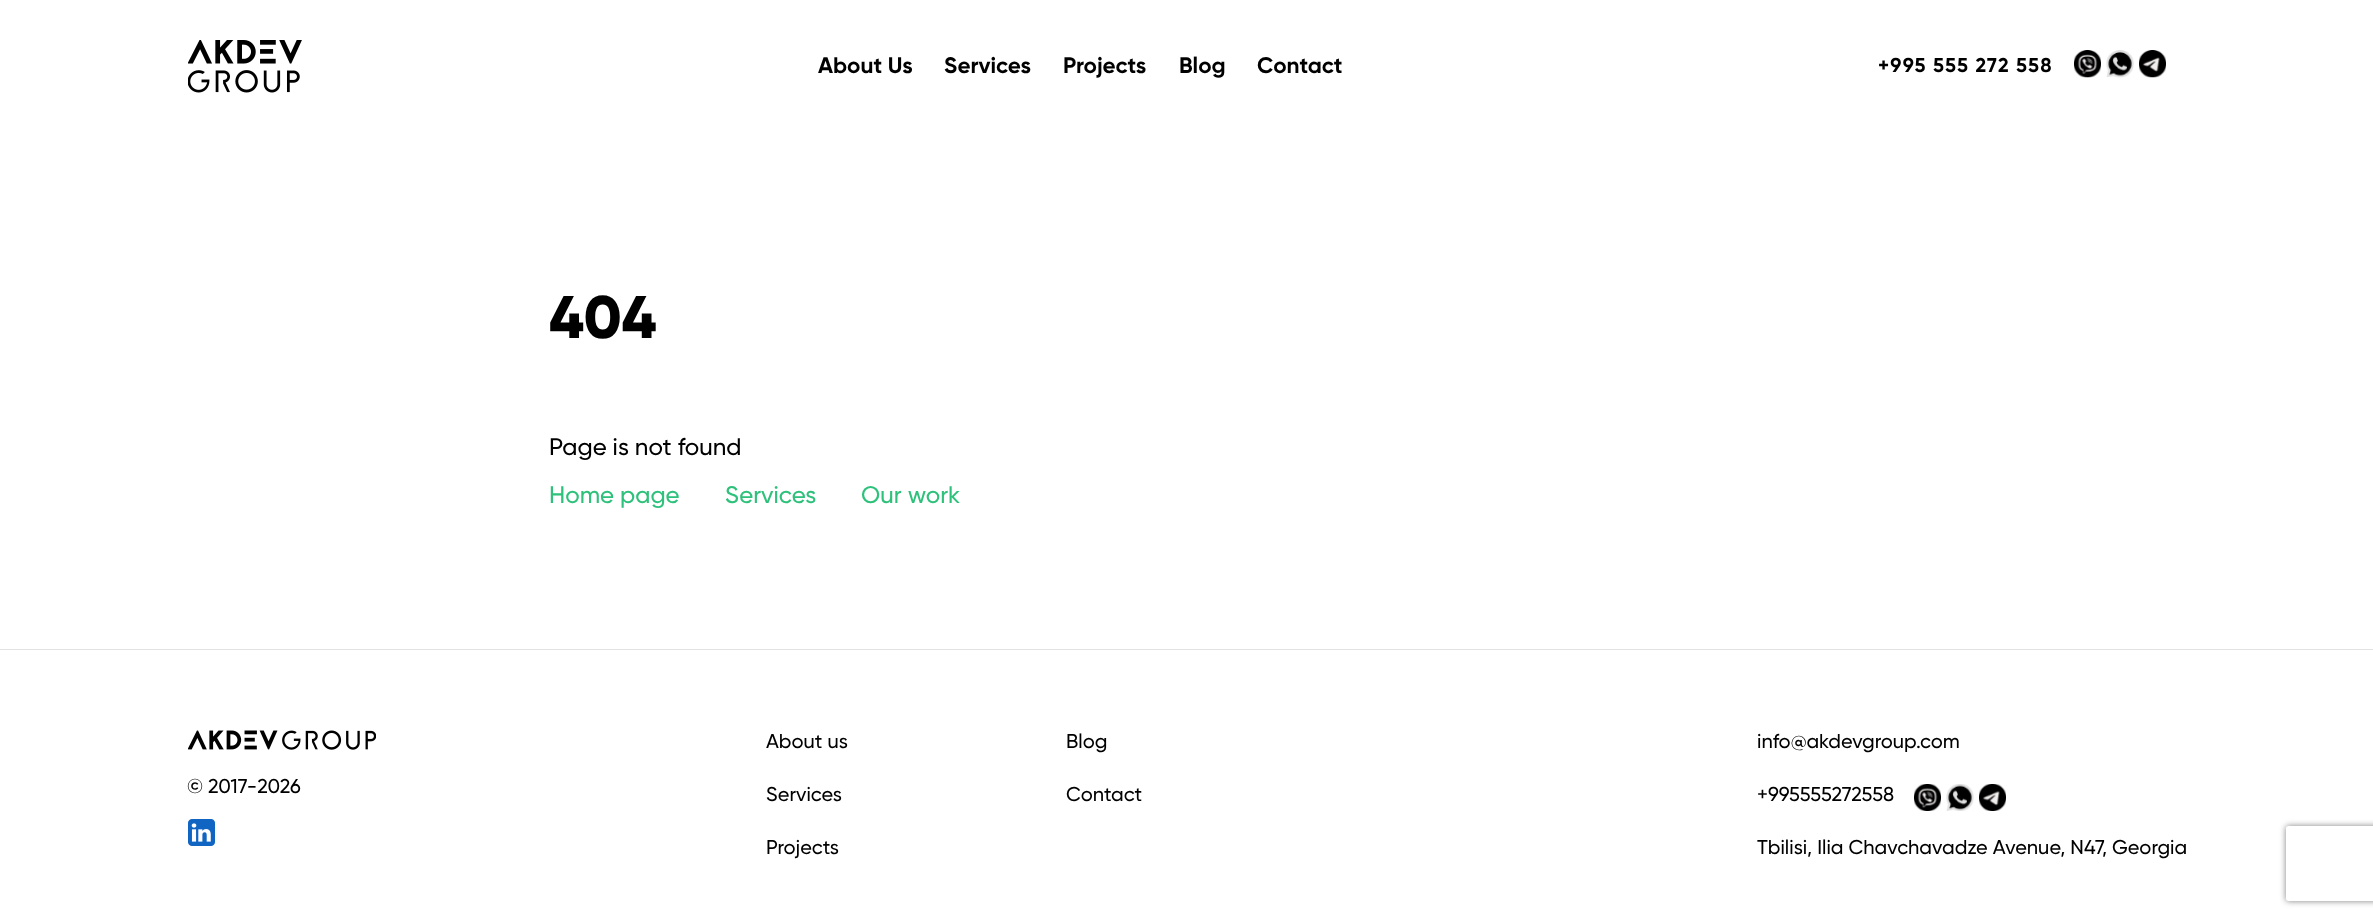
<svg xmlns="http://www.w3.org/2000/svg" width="2373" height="918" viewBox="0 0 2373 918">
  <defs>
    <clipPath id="clip1"><path d="M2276 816H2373V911H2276ZM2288.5 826H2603.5C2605 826 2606 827 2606 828.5V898.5C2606 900 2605 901 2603.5 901H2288.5C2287 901 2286 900 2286 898.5V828.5C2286 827 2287 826 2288.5 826Z" clip-rule="evenodd"/></clipPath>
  </defs>
  <rect width="100%" height="100%" fill="rgb(255,255,255)"/>
  <image x="188" y="40" width="114" height="53" href="pic1.png"/>
  <g font-family="Gilroy" font-size="22.5" font-weight="bold" fill="rgb(0,0,0)">
    <text x="818" y="73">About Us</text>
    <text x="944" y="73">Services</text>
    <text x="1063" y="73">Projects</text>
    <text x="1179" y="73">Blog</text>
    <text x="1257" y="73">Contact</text>
  </g>
  <text x="1878" y="72" font-family="Gilroy" font-size="20" font-weight="bold" letter-spacing="1.25" fill="rgb(0,0,0)">+995 555 272 558</text>
  <image x="2074" y="50" width="27" height="28" href="pic2.png"/>
  <image x="2106" y="50" width="28" height="28" href="pic3.png"/>
  <image x="2139" y="50" width="27" height="28" href="pic4.png"/>
  <text x="549" y="338" font-family="Gilroy" font-size="60" font-weight="800" fill="rgb(0,0,0)">404</text>
  <text x="549" y="455" font-family="Gilroy" font-size="24" font-weight="500" fill="rgb(0,0,0)">Page is not found</text>
  <g font-family="Gilroy" font-size="24" font-weight="500" fill="rgb(46,193,123)">
    <text x="549" y="503">Home page</text>
    <text x="725" y="503">Services</text>
    <text x="861" y="503">Our work</text>
  </g>
  <rect x="0" y="649" width="2373" height="1" fill="rgb(226,226,226)"/>
  <image x="188" y="730" width="188" height="20" href="pic5.png"/>
  <text x="187" y="793" font-family="Gilroy" font-size="20" font-weight="500" fill="rgb(0,0,0)">© 2017-2026</text>
  <image x="188" y="819" width="27" height="27" href="pic6.png"/>
  <g font-family="Gilroy" font-size="20" font-weight="500" fill="rgb(0,0,0)">
    <text x="766" y="748">About us</text>
    <text x="766" y="801">Services</text>
    <text x="766" y="854">Projects</text>
    <text x="1066" y="748">Blog</text>
    <text x="1066" y="801">Contact</text>
    <text x="1757" y="748">info@akdevgroup.com</text>
    <text x="1757" y="801">+995555272558</text>
  </g>
  <image x="1914" y="784" width="27" height="27" href="pic7.png"/>
  <image x="1946" y="784" width="28" height="27" href="pic8.png"/>
  <image x="1979" y="784" width="27" height="27" href="pic9.png"/>
  <text x="1757" y="854" font-family="Gilroy" font-size="20" font-weight="500" fill="rgb(0,0,0)">Tbilisi, Ilia Chavchavadze Avenue, N47, Georgia</text>
  <g clip-path="url(#clip1)">
    <rect x="2286" y="826" width="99" height="75" rx="2.5" fill="rgb(128,128,128)" filter="blur(3px)"/>
  </g>
</svg>
